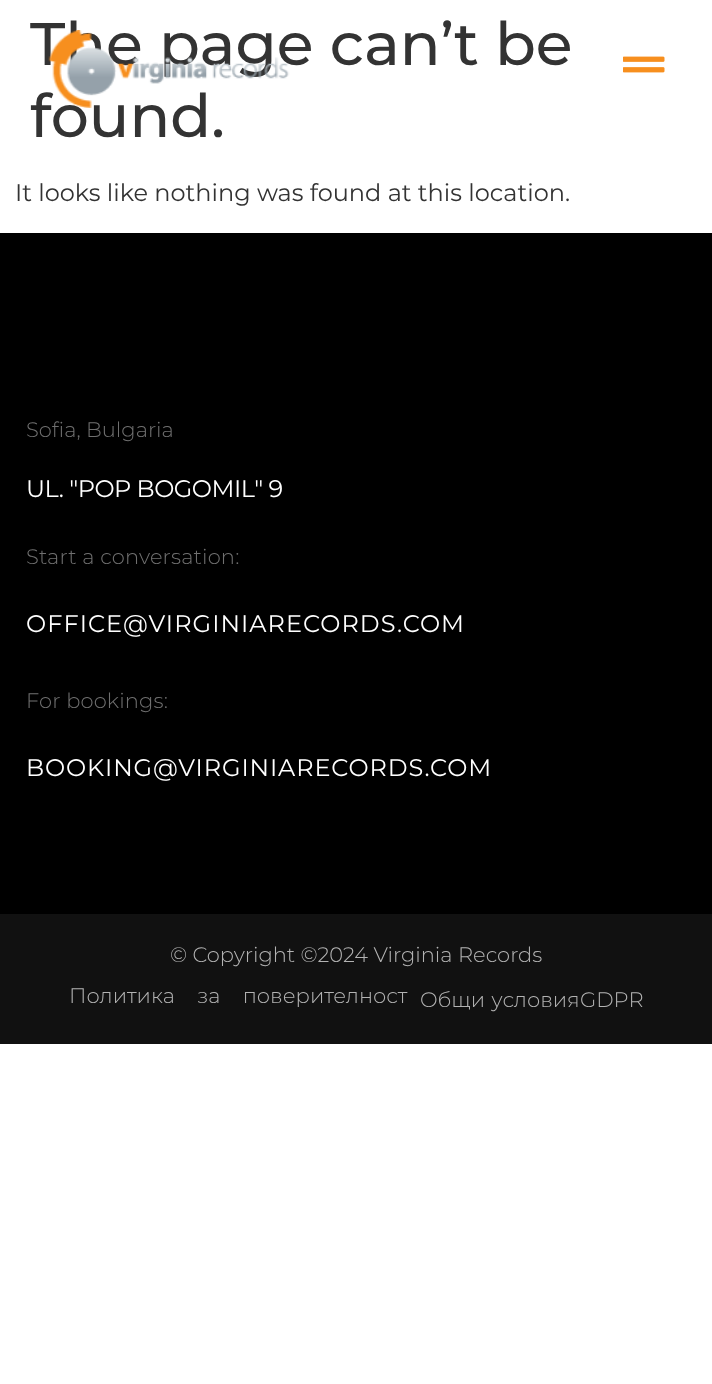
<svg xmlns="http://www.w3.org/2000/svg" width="712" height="1384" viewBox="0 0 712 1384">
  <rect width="100%" height="100%" fill="rgb(255,255,255)"/>
  <g font-family="Montserrat" font-size="60" font-weight="500" fill="rgb(51,51,51)">
    <text>
      <tspan x="30" y="65">The page can’t be</tspan>
      <tspan x="30" y="137">found.</tspan>
    </text>
  </g>
  <text x="15" y="201" font-family="Montserrat" font-size="24" fill="rgb(51,51,51)">It looks like nothing was found at this location.</text>
  <image x="48" y="30" width="242" height="78" href="pic1.png"/>
  <image x="623" y="56" width="42" height="17" href="pic2.png"/>
  <rect x="0" y="233" width="712" height="681" fill="rgb(0,0,0)"/>
  <text x="26" y="437" font-family="Montserrat" font-size="21" font-weight="300" fill="rgb(112,112,112)">Sofia, Bulgaria</text>
  <text x="26" y="497" font-family="Montserrat" font-size="24" letter-spacing="-0.5" fill="rgb(255,255,255)">UL. "POP BOGOMIL" 9</text>
  <text x="26" y="564" font-family="Montserrat" font-size="21" font-weight="300" letter-spacing="0.15" fill="rgb(112,112,112)">Start a conversation:</text>
  <text x="26" y="632" font-family="Montserrat" font-size="24" letter-spacing="1.05" fill="rgb(255,255,255)">OFFICE@VIRGINIARECORDS.COM</text>
  <text x="26" y="708" font-family="Montserrat" font-size="21" font-weight="300" letter-spacing="0.15" fill="rgb(112,112,112)">For bookings:</text>
  <text x="26" y="776" font-family="Montserrat" font-size="24" letter-spacing="0.9" fill="rgb(255,255,255)">BOOKING@VIRGINIARECORDS.COM</text>
  <rect x="0" y="914" width="712" height="130" fill="rgb(17,17,17)"/>
  <g font-family="Montserrat" font-size="21" font-weight="300" fill="rgb(179,179,179)">
    <text x="170" y="962">© Copyright ©2024 Virginia Records</text>
    <text x="69" y="1003" word-spacing="17">Политика за поверителност</text>
    <text x="420" y="1007" word-spacing="1">Oбщи условия</text>
    <text x="580" y="1007">GDPR</text>
  </g>
</svg>
